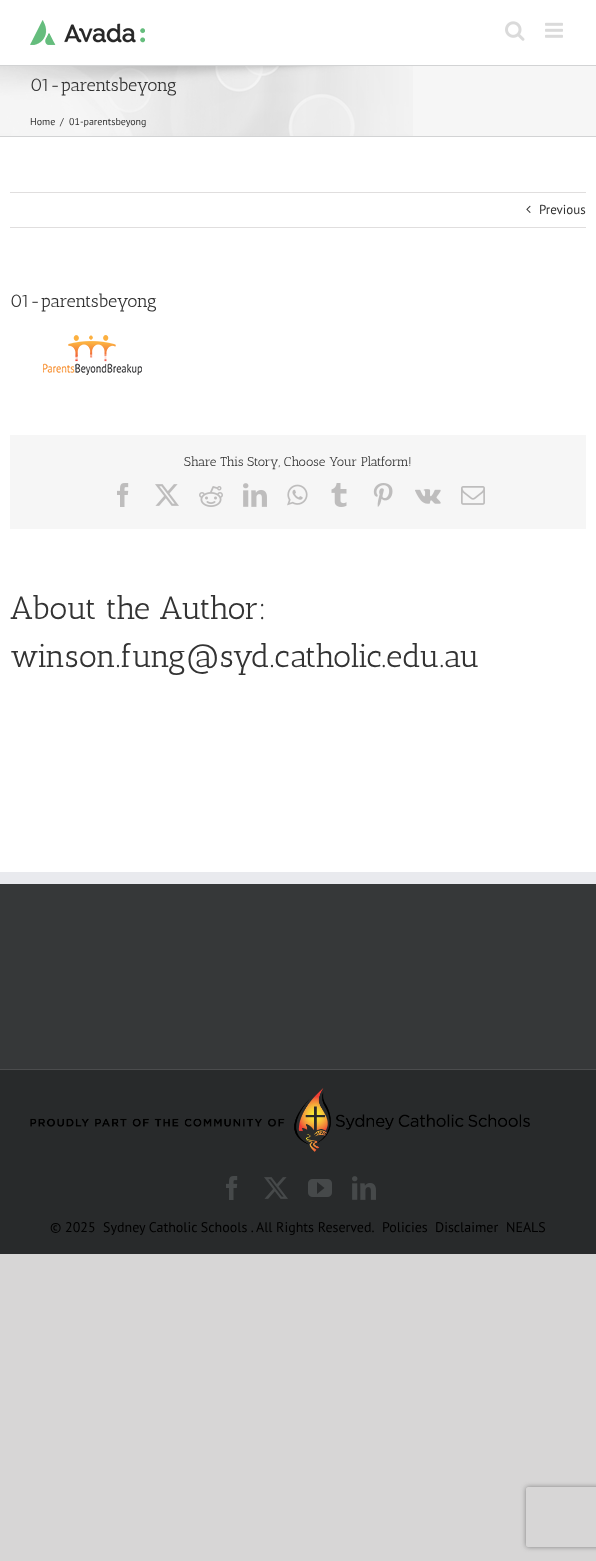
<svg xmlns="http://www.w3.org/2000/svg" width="596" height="1561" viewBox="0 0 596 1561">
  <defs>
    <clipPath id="clip1"><path d="M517 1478H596V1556H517ZM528 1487H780C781 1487 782 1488 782 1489V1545C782 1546 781 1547 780 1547H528C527 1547 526 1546 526 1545V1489C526 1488 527 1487 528 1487Z" clip-rule="evenodd"/></clipPath>
  </defs>
  <rect width="100%" height="100%" fill="rgb(215,214,214)"/>
  <rect x="0" y="0" width="596" height="872" fill="rgb(255,255,255)"/>
  <image x="30" y="20" width="115" height="25" href="pic1.png"/>
  <image x="505" y="21" width="20" height="20" href="pic2.png"/>
  <image x="545" y="22" width="18" height="16" href="pic3.png"/>
  <rect x="0" y="66" width="596" height="70" fill="rgb(246,246,246)"/>
  <image x="0" y="66" width="413" height="70" href="pic4.png"/>
  <rect x="0" y="65" width="596" height="1" fill="rgb(210,211,212)"/>
  <rect x="0" y="136" width="596" height="1" fill="rgb(210,211,212)"/>
  <text x="30" y="91" font-family="Antic Slab" font-size="18" fill="rgb(51,51,51)">01-parentsbeyong</text>
  <g font-family="PT Sans" font-size="10" fill="rgb(51,51,51)">
    <text x="30" y="125">Home</text>
    <text x="60" y="125">/</text>
    <text x="69" y="125">01-parentsbeyong</text>
  </g>
  <rect x="10" y="192" width="576" height="1" fill="rgb(224,222,222)"/>
  <rect x="10" y="227" width="576" height="1" fill="rgb(224,222,222)"/>
  <image x="526" y="205" width="5" height="8" href="pic5.png"/>
  <text x="539" y="214" font-family="PT Sans" font-size="13" fill="rgb(51,51,51)">Previous</text>
  <text x="10" y="307" font-family="Antic Slab" font-size="18" fill="rgb(51,51,51)">01-parentsbeyong</text>
  <image x="43" y="335" width="99" height="40" href="pic6.png"/>
  <rect x="10" y="435" width="576" height="94" fill="rgb(246,246,246)"/>
  <text x="184" y="466" font-family="Antic Slab" font-size="13" fill="rgb(51,51,51)">Share This Story, Choose Your Platform!</text>
  <image x="117" y="483" width="12" height="24" href="pic7.png"/>
  <image x="155" y="484" width="24" height="22" href="pic8.png"/>
  <image x="199" y="486" width="24" height="21" href="pic9.png"/>
  <image x="243" y="483" width="24" height="24" href="pic10.png"/>
  <image x="287" y="484" width="21" height="22" href="pic11.png"/>
  <image x="331" y="483" width="16" height="24" href="pic12.png"/>
  <image x="373" y="483" width="20" height="24" href="pic13.png"/>
  <image x="415" y="489" width="26" height="15" href="pic14.png"/>
  <image x="461" y="486" width="24" height="19" href="pic15.png"/>
  <g font-family="Antic Slab" font-size="32" fill="rgb(51,51,51)">
    <text>
      <tspan x="10" y="619">About the Author:</tspan>
      <tspan x="10" y="667">winson.fung@syd.catholic.edu.au</tspan>
    </text>
  </g>
  <rect x="0" y="884" width="596" height="185" fill="rgb(54,56,57)"/>
  <rect x="0" y="872" width="596" height="12" fill="rgb(233,234,238)"/>
  <rect x="0" y="1070" width="596" height="184" fill="rgb(40,42,43)"/>
  <rect x="0" y="1069" width="596" height="1" fill="rgb(75,76,77)"/>
  <image x="30" y="1088" width="500" height="64" href="pic16.png"/>
  <image x="226" y="1176" width="12" height="24" href="pic17.png"/>
  <image x="264" y="1177" width="24" height="22" href="pic18.png"/>
  <image x="308" y="1179" width="24" height="18" href="pic19.png"/>
  <image x="352" y="1176" width="24" height="24" href="pic20.png"/>
  <g font-family="PT Sans" font-size="14" fill="rgb(0,0,0)">
    <text x="50" y="1232">© 2025</text>
    <text x="103" y="1232">Sydney Catholic Schools .</text>
    <text x="256" y="1232">All Rights Reserved.</text>
    <text x="382" y="1232">Policies</text>
    <text x="435" y="1232">Disclaimer</text>
    <text x="506" y="1232">NEALS</text>
  </g>
  <g clip-path="url(#clip1)">
    <rect x="526" y="1487" width="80" height="60" rx="2" fill="rgb(128,128,128)" filter="blur(2.5px)"/>
  </g>
</svg>
